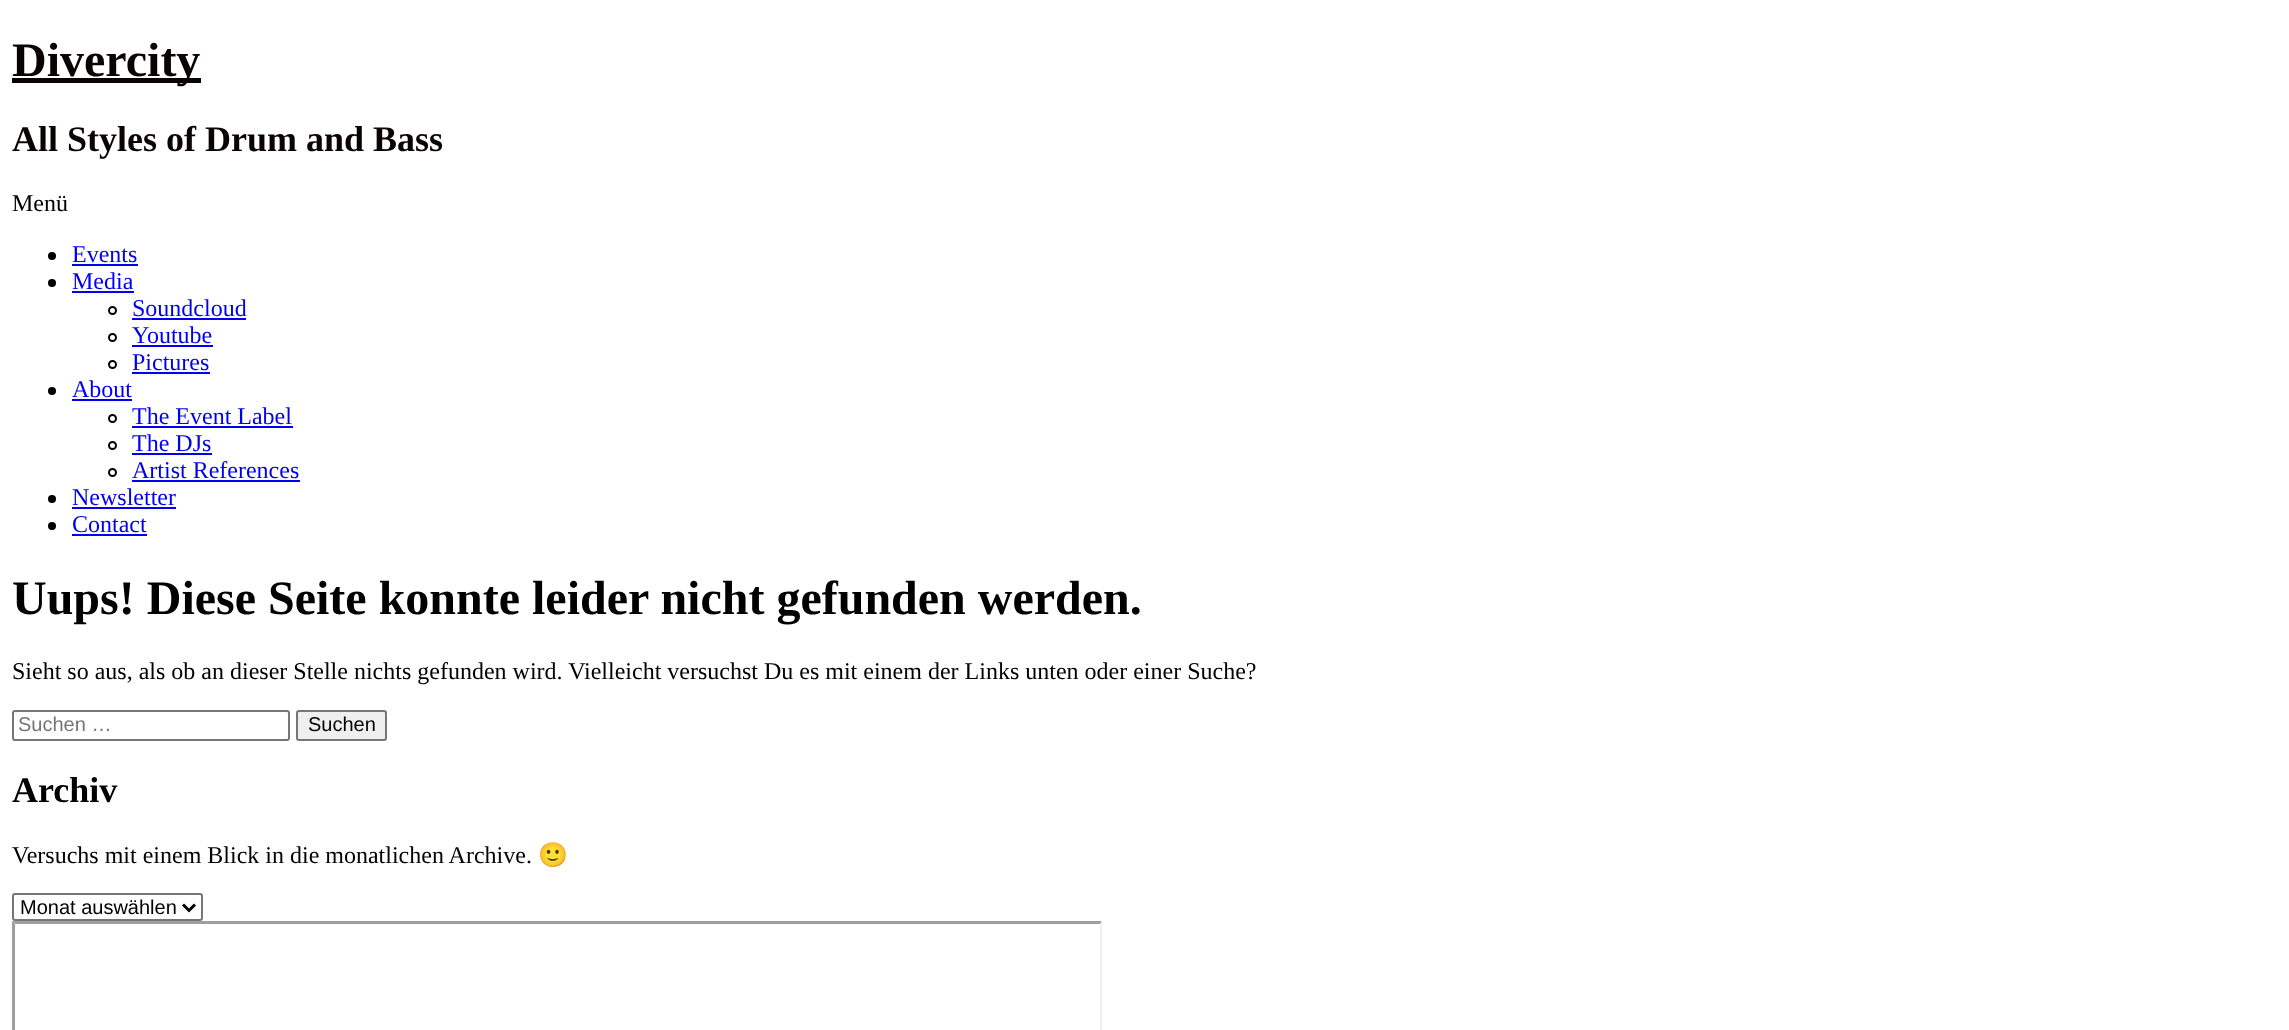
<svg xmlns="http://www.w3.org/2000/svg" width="2289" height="1030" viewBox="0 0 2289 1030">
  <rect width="100%" height="100%" fill="rgb(255,255,255)"/>
  <rect x="12" y="78" width="189" height="5" fill="rgb(10,3,3)"/>
  <text x="12" y="76" font-family="Liberation Serif" font-size="48" font-weight="bold" fill="rgb(10,3,3)">Divercity</text>
  <text x="12" y="151" font-family="Liberation Serif" font-size="36" font-weight="bold" fill="rgb(10,3,3)">All Styles of Drum and Bass</text>
  <text x="12" y="211" font-family="Liberation Serif" font-size="24" fill="rgb(0,0,0)">Menü</text>
  <circle cx="52" cy="256" r="4" fill="rgb(0,0,0)"/>
  <text x="72" y="262" font-family="Liberation Serif" font-size="24" fill="rgb(0,0,238)">Events</text>
  <rect x="72" y="264" width="66" height="2" fill="rgb(0,0,238)"/>
  <circle cx="52" cy="283" r="4" fill="rgb(0,0,0)"/>
  <text x="72" y="289" font-family="Liberation Serif" font-size="24" fill="rgb(0,0,238)">Media</text>
  <rect x="72" y="291" width="62" height="2" fill="rgb(0,0,238)"/>
  <circle cx="112.5" cy="310.5" r="3.5" fill="none" stroke="rgb(0,0,0)" stroke-width="2"/>
  <text x="132" y="316" font-family="Liberation Serif" font-size="24" fill="rgb(0,0,238)">Soundcloud</text>
  <rect x="132" y="318" width="114" height="2" fill="rgb(0,0,238)"/>
  <circle cx="112.5" cy="337.5" r="3.5" fill="none" stroke="rgb(0,0,0)" stroke-width="2"/>
  <text x="132" y="343" font-family="Liberation Serif" font-size="24" fill="rgb(0,0,238)">Youtube</text>
  <rect x="132" y="345" width="81" height="2" fill="rgb(0,0,238)"/>
  <circle cx="112.5" cy="364.5" r="3.5" fill="none" stroke="rgb(0,0,0)" stroke-width="2"/>
  <text x="132" y="370" font-family="Liberation Serif" font-size="24" fill="rgb(0,0,238)">Pictures</text>
  <rect x="132" y="372" width="78" height="2" fill="rgb(0,0,238)"/>
  <circle cx="52" cy="391" r="4" fill="rgb(0,0,0)"/>
  <text x="72" y="397" font-family="Liberation Serif" font-size="24" fill="rgb(0,0,238)">About</text>
  <rect x="72" y="399" width="60" height="2" fill="rgb(0,0,238)"/>
  <circle cx="112.5" cy="418.5" r="3.5" fill="none" stroke="rgb(0,0,0)" stroke-width="2"/>
  <text x="132" y="424" font-family="Liberation Serif" font-size="24" fill="rgb(0,0,238)">The Event Label</text>
  <rect x="132" y="426" width="161" height="2" fill="rgb(0,0,238)"/>
  <circle cx="112.5" cy="445.5" r="3.5" fill="none" stroke="rgb(0,0,0)" stroke-width="2"/>
  <text x="132" y="451" font-family="Liberation Serif" font-size="24" fill="rgb(0,0,238)">The DJs</text>
  <rect x="132" y="453" width="80" height="2" fill="rgb(0,0,238)"/>
  <circle cx="112.5" cy="472.5" r="3.5" fill="none" stroke="rgb(0,0,0)" stroke-width="2"/>
  <text x="132" y="478" font-family="Liberation Serif" font-size="24" fill="rgb(0,0,238)">Artist References</text>
  <rect x="132" y="480" width="168" height="2" fill="rgb(0,0,238)"/>
  <circle cx="52" cy="499" r="4" fill="rgb(0,0,0)"/>
  <text x="72" y="505" font-family="Liberation Serif" font-size="24" fill="rgb(0,0,238)">Newsletter</text>
  <rect x="72" y="507" width="104" height="2" fill="rgb(0,0,238)"/>
  <circle cx="52" cy="526" r="4" fill="rgb(0,0,0)"/>
  <text x="72" y="532" font-family="Liberation Serif" font-size="24" fill="rgb(0,0,238)">Contact</text>
  <rect x="72" y="534" width="75" height="2" fill="rgb(0,0,238)"/>
  <text x="12" y="614" font-family="Liberation Serif" font-size="48" font-weight="bold" fill="rgb(0,0,0)">Uups! Diese Seite konnte leider nicht gefunden werden.</text>
  <text x="12" y="679" font-family="Liberation Serif" font-size="24" fill="rgb(0,0,0)">Sieht so aus, als ob an dieser Stelle nichts gefunden wird. Vielleicht versuchst Du es mit einem der Links unten oder einer Suche?</text>
  <rect x="13" y="711" width="276" height="29" rx="2" fill="none" stroke="rgb(118,118,118)" stroke-width="2"/>
  <text x="18" y="731" font-family="Liberation Sans" font-size="20" fill="rgb(117,117,117)">Suchen …</text>
  <rect x="297" y="711" width="89" height="29" rx="2" fill="rgb(239,239,239)" stroke="rgb(118,118,118)" stroke-width="2"/>
  <text x="308" y="731" font-family="Liberation Sans" font-size="20" fill="rgb(0,0,0)">Suchen</text>
  <text x="12" y="802" font-family="Liberation Serif" font-size="36" font-weight="bold" fill="rgb(0,0,0)">Archiv</text>
  <text x="12" y="863" font-family="Liberation Serif" font-size="24" fill="rgb(0,0,0)">Versuchs mit einem Blick in die monatlichen Archive.</text>
  <text x="538" y="863" font-family="Noto Color Emoji" font-size="24" fill="rgb(0,0,0)">🙂</text>
  <rect x="13" y="894" width="189" height="26" rx="2" fill="none" stroke="rgb(118,118,118)" stroke-width="2"/>
  <path d="M183 904.5L189 910.5L195 904.5" fill="none" stroke="rgb(0,0,0)" stroke-width="3"/>
  <text x="20" y="914" font-family="Liberation Sans" font-size="20" fill="rgb(0,0,0)">Monat auswählen</text>
  <path d="M12 921H1102L1100 924H15Z" fill="rgb(159,159,159)"/>
  <path d="M12 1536V921L15 924V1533Z" fill="rgb(159,159,159)"/>
  <path d="M1102 921V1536L1100 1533V924Z" fill="rgb(238,238,238)"/>
</svg>
